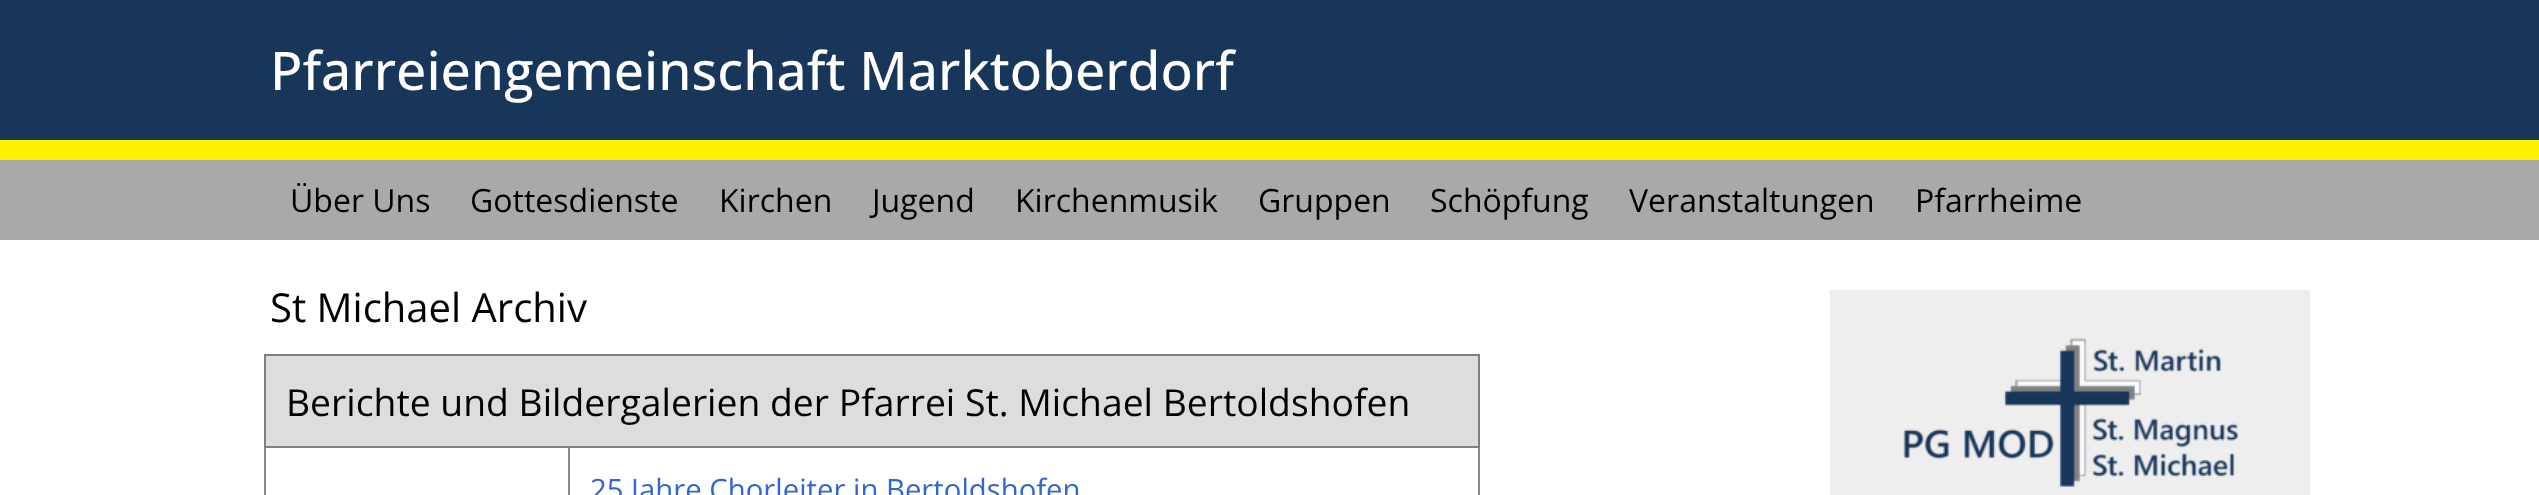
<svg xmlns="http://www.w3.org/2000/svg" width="2539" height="495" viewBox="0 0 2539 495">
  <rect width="100%" height="100%" fill="rgb(255,255,255)"/>
  <rect x="0" y="0" width="2539" height="140" fill="rgb(24,53,90)"/>
  <rect x="0" y="140" width="2539" height="20" fill="rgb(255,242,0)"/>
  <text x="270" y="90" font-family="Open Sans" font-size="53.3" font-weight="500" fill="rgb(255,255,255)">Pfarreiengemeinschaft Marktoberdorf</text>
  <rect x="0" y="160" width="2539" height="80" fill="rgb(169,169,169)"/>
  <g font-family="Open Sans" font-size="32" fill="rgb(0,0,0)">
    <text x="290" y="212">Über Uns</text>
    <text x="470" y="212">Gottesdienste</text>
    <text x="719" y="212">Kirchen</text>
    <text x="872" y="212">Jugend</text>
    <text x="1015" y="212">Kirchenmusik</text>
    <text x="1258" y="212">Gruppen</text>
    <text x="1430" y="212">Schöpfung</text>
    <text x="1629" y="212">Veranstaltungen</text>
    <text x="1915" y="212">Pfarrheime</text>
  </g>
  <text x="270" y="322" font-family="Open Sans" font-size="40" fill="rgb(0,0,0)">St Michael Archiv</text>
  <rect x="264" y="354" width="1216" height="2" fill="rgb(128,128,128)"/>
  <rect x="264" y="354" width="2" height="92" fill="rgb(128,128,128)"/>
  <rect x="266" y="356" width="1212" height="90" fill="rgb(221,221,221)"/>
  <rect x="1478" y="446" width="2" height="49" fill="rgb(138,138,138)"/>
  <rect x="1478" y="354" width="2" height="94" fill="rgb(128,128,128)"/>
  <rect x="264" y="446" width="2" height="49" fill="rgb(138,138,138)"/>
  <rect x="568" y="446" width="2" height="49" fill="rgb(138,138,138)"/>
  <rect x="264" y="446" width="1216" height="2" fill="rgb(128,128,128)"/>
  <text x="286" y="416" font-family="Open Sans" font-size="37.3" fill="rgb(0,0,0)">Berichte und Bildergalerien der Pfarrei St. Michael Bertoldshofen</text>
  <text x="590" y="500" font-family="Open Sans" font-size="29.3" fill="rgb(52,103,203)">25 Jahre Chorleiter in Bertoldshofen</text>
  <rect x="1830" y="290" width="480" height="205" fill="rgb(238,238,238)"/>
  <image x="1903" y="338" width="336" height="149" href="pic1.png"/>
</svg>
